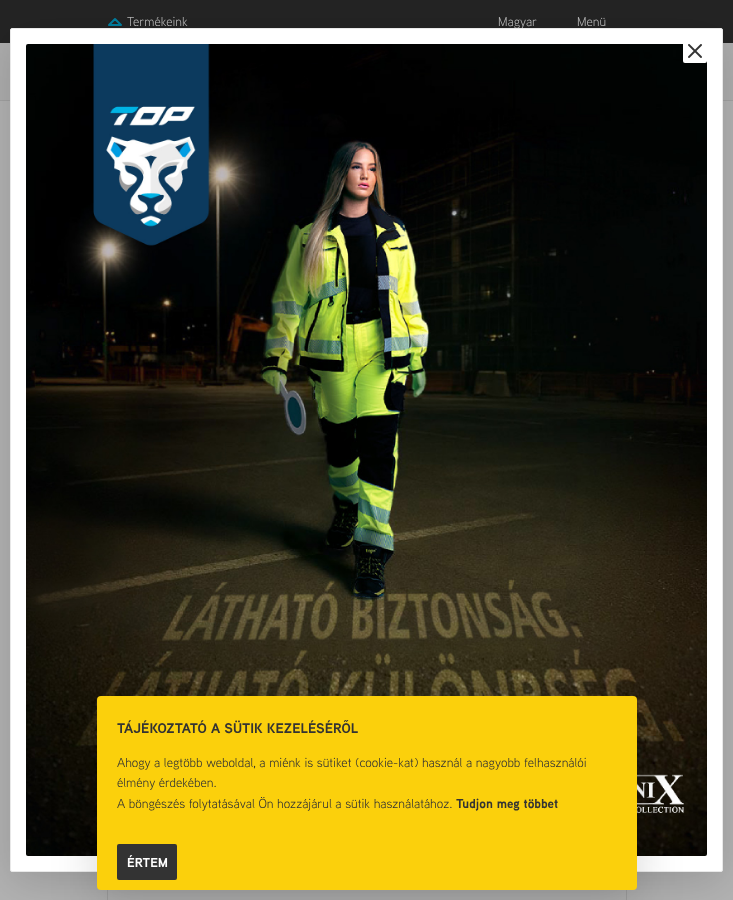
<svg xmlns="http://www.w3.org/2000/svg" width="733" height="900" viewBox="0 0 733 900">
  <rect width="100%" height="100%" fill="rgb(179,179,179)"/>
  <rect x="0" y="0" width="733" height="43" fill="rgb(36,36,36)"/>
  <path d="M121 25L115 19L109 25Z" fill="none" stroke="rgb(0,127,160)" stroke-width="2" stroke-linecap="round" stroke-linejoin="round"/>
  <rect x="0" y="43" width="733" height="57" fill="rgb(174,174,174)"/>
  <rect x="0" y="100" width="733" height="1" fill="rgb(162,162,162)"/>
  <rect x="626" y="890" width="1" height="10" fill="rgb(162,162,162)"/>
  <rect x="107" y="890" width="1" height="10" fill="rgb(162,162,162)"/>
  <rect x="10" y="38" width="713" height="844" rx="2" fill="rgba(0,0,0,0.16)" filter="blur(22.5px)"/>
  <text x="498" y="26" font-family="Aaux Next" font-size="13" fill="rgb(179,179,179)">Magyar</text>
  <rect x="10.5" y="28.5" width="712" height="843" rx="1.5" fill="rgb(255,255,255)" stroke="rgb(232,232,232)"/>
  <image x="26" y="44" width="681" height="812" href="pic2.png"/>
  <rect x="683" y="39" width="24" height="24" rx="2" fill="rgb(255,255,255)"/>
  <image x="688" y="44" width="14" height="14" href="pic1.png"/>
  <g font-family="Aaux Next" font-size="13" fill="rgb(179,179,179)">
    <text x="127" y="26">Termékeink</text>
    <text x="577" y="26">Menü</text>
  </g>
  <rect x="97" y="706" width="540" height="194" rx="4" fill="rgba(0,0,0,0.16)" filter="blur(22.5px)"/>
  <rect x="97" y="696" width="540" height="194" rx="4" fill="rgb(251,208,12)"/>
  <text x="117" y="733" font-family="Aaux Next" font-size="14" font-weight="bold" fill="rgb(51,51,51)">TÁJÉKOZTATÓ A SÜTIK KEZELÉSÉRŐL</text>
  <g font-family="Aaux Next" font-size="13" fill="rgb(51,51,51)">
    <text>
      <tspan x="117" y="767">Ahogy a legtöbb weboldal, a miénk is sütiket (cookie-kat) használ a nagyobb felhasználói</tspan>
      <tspan x="117" y="787">élmény érdekében.</tspan>
      <tspan x="117" y="808">A böngészés folytatásával Ön hozzájárul a sütik használatához.</tspan>
    </text>
  </g>
  <text x="456" y="808" font-family="Aaux Next" font-size="13" font-weight="bold" fill="rgb(51,51,51)">Tudjon meg többet</text>
  <rect x="117" y="844" width="60" height="36" rx="2" fill="rgb(51,51,51)"/>
  <text x="127" y="867" font-family="Aaux Next" font-size="13" font-weight="bold" fill="rgb(255,255,255)">ÉRTEM</text>
</svg>
